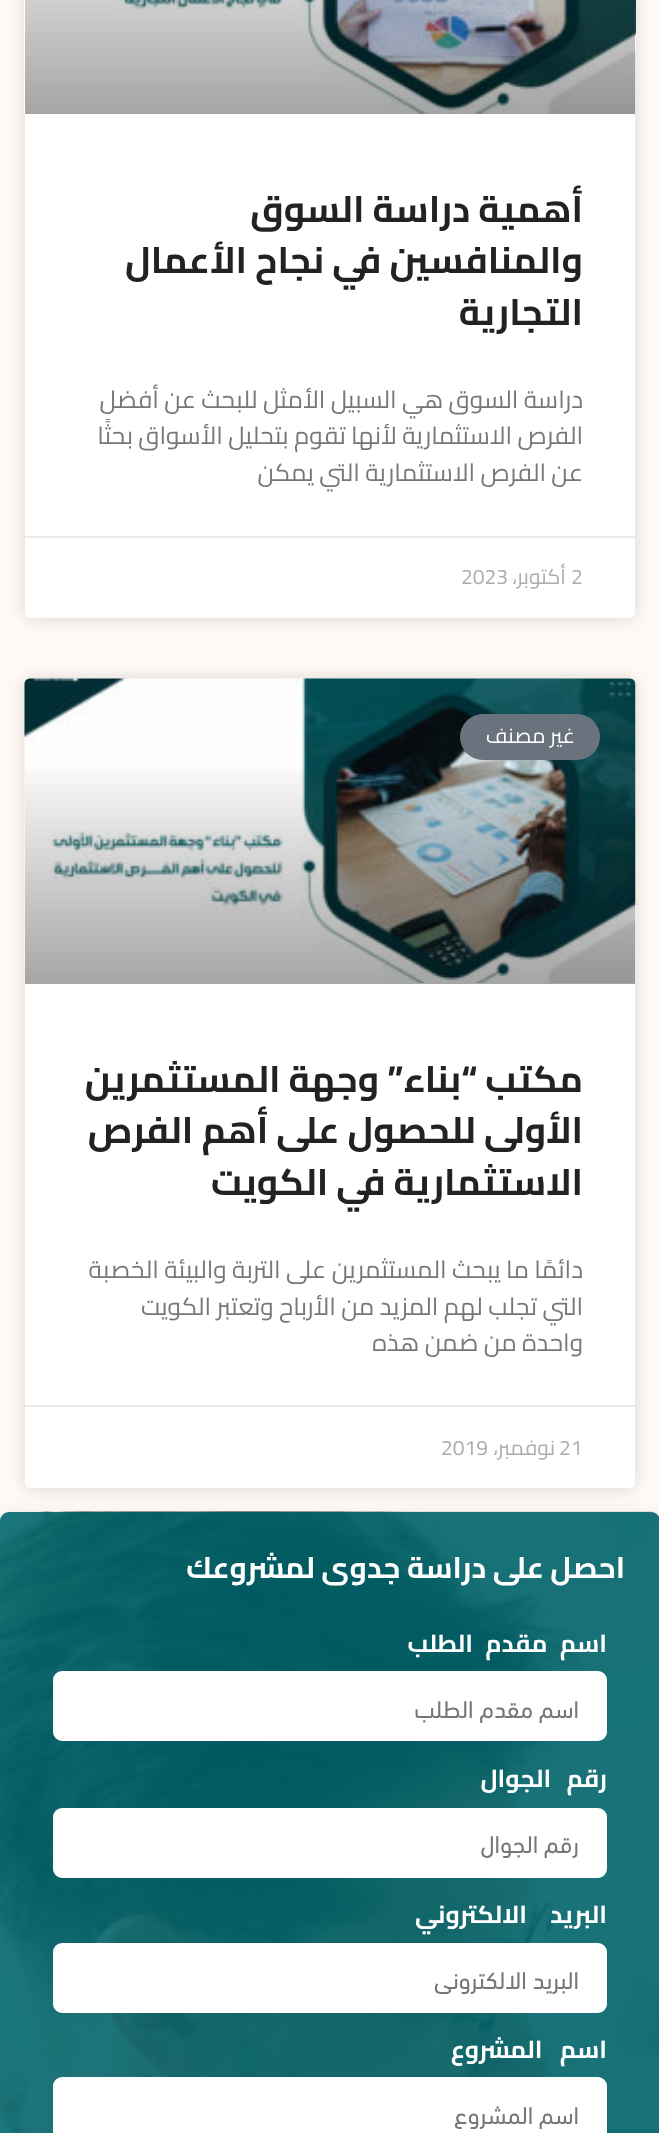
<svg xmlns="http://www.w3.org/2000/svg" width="659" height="2133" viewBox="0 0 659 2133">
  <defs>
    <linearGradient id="g1" gradientUnits="userSpaceOnUse" x1="330" y1="984" x2="330" y2="679"><stop offset="0" stop-color="rgb(0,0,0)" stop-opacity="0.35"/><stop offset="0.75" stop-color="rgb(0,0,0)" stop-opacity="0"/></linearGradient>
    <clipPath id="clip1"><rect x="81" y="1958" width="498" height="37"/></clipPath>
  </defs>
  <rect width="100%" height="100%" fill="rgb(255,250,245)"/>
  <rect x="25" y="-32" width="610" height="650" rx="5" fill="rgba(0,0,0,0.15)" filter="blur(9px)"/>
  <rect x="25" y="-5" width="610" height="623" rx="5" fill="rgb(255,255,255)"/>
  <image x="24" y="0" width="612" height="114" href="pic1.png"/>
  <g font-family="Cairo" font-size="36.75" font-weight="bold" direction="rtl" fill="rgb(34,34,34)">
    <text>
      <tspan x="583" y="222">أهمية دراسة السوق</tspan>
      <tspan x="583" y="273">والمنافسين في نجاح الأعمال</tspan>
      <tspan x="583" y="325">التجارية</tspan>
    </text>
  </g>
  <g font-family="Cairo" font-size="24.5" direction="rtl" fill="rgb(119,119,119)">
    <text>
      <tspan x="583" y="408">دراسة السوق هي السبيل الأمثل للبحث عن أفضل</tspan>
      <tspan x="583" y="444">الفرص الاستثمارية لأنها تقوم بتحليل الأسواق بحثًا</tspan>
      <tspan x="583" y="481">عن الفرص الاستثمارية التي يمكن</tspan>
    </text>
  </g>
  <rect x="25" y="536" width="610" height="2" fill="rgb(234,234,234)"/>
  <text x="571" y="584" font-family="Cairo" font-size="21" fill="rgb(173,173,173)">2</text>
  <text x="566" y="584" font-family="Cairo" font-size="21" direction="rtl" fill="rgb(173,173,173)">أكتوبر،</text>
  <text x="461" y="584" font-family="Cairo" font-size="21" fill="rgb(173,173,173)">2023</text>
  <rect x="25" y="679" width="610" height="809" rx="5" fill="rgba(0,0,0,0.15)" filter="blur(9px)"/>
  <rect x="25" y="679" width="610" height="809" rx="5" fill="rgb(255,255,255)"/>
  <image x="24" y="678" width="612" height="305" href="pic2.png"/>
  <rect x="25" y="769" width="610" height="215" fill="url(#g1)"/>
  <rect x="460" y="714" width="140" height="46" rx="23" fill="rgb(105,114,125)"/>
  <text x="575" y="743" font-family="Cairo" font-size="21" direction="rtl" fill="rgb(255,255,255)">غير مصنف</text>
  <g font-family="Cairo" font-size="36.75" font-weight="bold" direction="rtl" fill="rgb(34,34,34)">
    <text>
      <tspan x="583" y="1092">مكتب “بناء” وجهة المستثمرين</tspan>
      <tspan x="583" y="1143">الأولى للحصول على أهم الفرص</tspan>
      <tspan x="583" y="1195">الاستثمارية في الكويت</tspan>
    </text>
  </g>
  <g font-family="Cairo" font-size="24.5" direction="rtl" fill="rgb(119,119,119)">
    <text>
      <tspan x="583" y="1278">دائمًا ما يبحث المستثمرين على التربة والبيئة الخصبة</tspan>
      <tspan x="583" y="1315">التي تجلب لهم المزيد من الأرباح وتعتبر الكويت</tspan>
      <tspan x="583" y="1351">واحدة من ضمن هذه</tspan>
    </text>
  </g>
  <rect x="25" y="1405" width="610" height="2" fill="rgb(234,234,234)"/>
  <text x="559" y="1455" font-family="Cairo" font-size="21" fill="rgb(173,173,173)">21</text>
  <text x="555" y="1455" font-family="Cairo" font-size="21" direction="rtl" fill="rgb(173,173,173)">نوفمبر،</text>
  <text x="441" y="1455" font-family="Cairo" font-size="21" fill="rgb(173,173,173)">2019</text>
  <rect x="0" y="1512" width="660" height="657" rx="9" fill="rgba(10,10,10,0.05)" filter="blur(9px)"/>
  <image x="0" y="1511" width="659" height="622" href="pic3.png"/>
  <rect x="0" y="1512" width="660" height="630" rx="9" fill="rgba(0,101,109,0.89)"/>
  <text x="625" y="1578" font-family="Cairo" font-size="29.75" font-weight="bold" direction="rtl" fill="rgb(255,255,255)">احصل على دراسة جدوى لمشروعك</text>
  <text x="607" y="1652" word-spacing="7" font-family="Cairo" font-size="24.5" font-weight="bold" letter-spacing="-1" direction="rtl" fill="rgb(255,255,255)">اسم مقدم الطلب</text>
  <rect x="54" y="1672" width="552" height="68" rx="8" fill="rgb(255,255,255)" stroke="rgb(255,255,255)" stroke-width="2"/>
  <text x="579" y="1718" font-family="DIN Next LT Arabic" font-size="24.5" direction="rtl" fill="rgb(119,119,119)">اسم مقدم الطلب</text>
  <text x="607" y="1787" word-spacing="10" font-family="Cairo" font-size="24.5" font-weight="bold" letter-spacing="-1" direction="rtl" fill="rgb(255,255,255)">رقم الجوال</text>
  <rect x="54" y="1809" width="552" height="68" rx="8" fill="rgb(255,255,255)" stroke="rgb(255,255,255)" stroke-width="2"/>
  <text x="579" y="1853" font-family="DIN Next LT Arabic" font-size="24.5" direction="rtl" fill="rgb(119,119,119)">رقم الجوال</text>
  <text x="607" y="1923" word-spacing="18" font-family="Cairo" font-size="24.5" font-weight="bold" letter-spacing="-1" direction="rtl" fill="rgb(255,255,255)">البريد الالكتروني</text>
  <rect x="54" y="1944" width="552" height="68" rx="8" fill="rgb(255,255,255)" stroke="rgb(255,255,255)" stroke-width="2"/>
  <g clip-path="url(#clip1)">
    <text x="579" y="1989" font-family="DIN Next LT Arabic" font-size="24.5" direction="rtl" fill="rgb(119,119,119)">البريد الالكتروني</text>
  </g>
  <text x="607" y="2058" word-spacing="12" font-family="Cairo" font-size="24.5" font-weight="bold" letter-spacing="-1" direction="rtl" fill="rgb(255,255,255)">اسم المشروع</text>
  <rect x="54" y="2078" width="552" height="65" rx="8" fill="rgb(255,255,255)" stroke="rgb(255,255,255)" stroke-width="2"/>
  <text x="579" y="2124" font-family="DIN Next LT Arabic" font-size="24.5" direction="rtl" fill="rgb(119,119,119)">اسم المشروع</text>
</svg>
